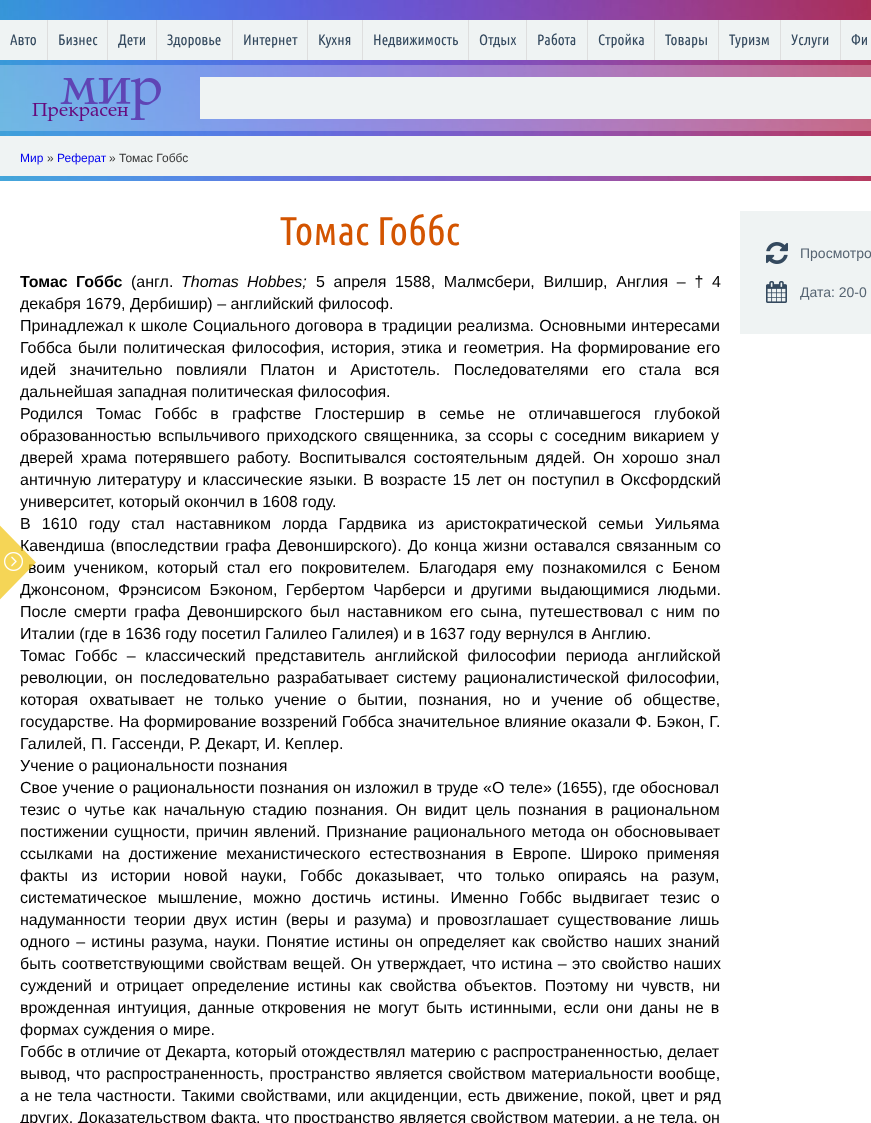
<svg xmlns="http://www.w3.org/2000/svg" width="871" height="1123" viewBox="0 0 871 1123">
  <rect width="100%" height="100%" fill="rgb(255,255,255)"/>
  <image x="0" y="0" width="871" height="181" href="pic1.png"/>
  <rect x="0" y="20" width="871" height="40" fill="rgb(239,243,243)"/>
  <rect x="47" y="20" width="1" height="40" fill="rgb(222,222,222)"/>
  <text x="10" y="45" font-family="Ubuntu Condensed" font-size="15" fill="rgb(52,73,94)">Авто</text>
  <rect x="107" y="20" width="1" height="40" fill="rgb(222,222,222)"/>
  <text x="58" y="45" font-family="Ubuntu Condensed" font-size="15" fill="rgb(52,73,94)">Бизнес</text>
  <rect x="156" y="20" width="1" height="40" fill="rgb(222,222,222)"/>
  <text x="118" y="45" font-family="Ubuntu Condensed" font-size="15" fill="rgb(52,73,94)">Дети</text>
  <rect x="232" y="20" width="1" height="40" fill="rgb(222,222,222)"/>
  <text x="167" y="45" font-family="Ubuntu Condensed" font-size="15" fill="rgb(52,73,94)">Здоровье</text>
  <rect x="307" y="20" width="1" height="40" fill="rgb(222,222,222)"/>
  <text x="243" y="45" font-family="Ubuntu Condensed" font-size="15" fill="rgb(52,73,94)">Интернет</text>
  <rect x="362" y="20" width="1" height="40" fill="rgb(222,222,222)"/>
  <text x="318" y="45" font-family="Ubuntu Condensed" font-size="15" fill="rgb(52,73,94)">Кухня</text>
  <rect x="468" y="20" width="1" height="40" fill="rgb(222,222,222)"/>
  <text x="373" y="45" font-family="Ubuntu Condensed" font-size="15" fill="rgb(52,73,94)">Недвижимость</text>
  <rect x="526" y="20" width="1" height="40" fill="rgb(222,222,222)"/>
  <text x="479" y="45" font-family="Ubuntu Condensed" font-size="15" fill="rgb(52,73,94)">Отдых</text>
  <rect x="587" y="20" width="1" height="40" fill="rgb(222,222,222)"/>
  <text x="537" y="45" font-family="Ubuntu Condensed" font-size="15" fill="rgb(52,73,94)">Работа</text>
  <rect x="654" y="20" width="1" height="40" fill="rgb(222,222,222)"/>
  <text x="598" y="45" font-family="Ubuntu Condensed" font-size="15" fill="rgb(52,73,94)">Стройка</text>
  <rect x="718" y="20" width="1" height="40" fill="rgb(222,222,222)"/>
  <text x="665" y="45" font-family="Ubuntu Condensed" font-size="15" fill="rgb(52,73,94)">Товары</text>
  <rect x="780" y="20" width="1" height="40" fill="rgb(222,222,222)"/>
  <text x="729" y="45" font-family="Ubuntu Condensed" font-size="15" fill="rgb(52,73,94)">Туризм</text>
  <rect x="840" y="20" width="1" height="40" fill="rgb(222,222,222)"/>
  <g font-family="Ubuntu Condensed" font-size="15" fill="rgb(52,73,94)">
    <text x="791" y="45">Услуги</text>
    <text x="851" y="45">Фи</text>
  </g>
  <rect x="0" y="65" width="871" height="66" fill="rgba(255,255,255,0.26)"/>
  <image x="32" y="78" width="129" height="43" href="pic2.png"/>
  <rect x="200" y="77" width="671" height="42" fill="rgb(239,243,243)"/>
  <rect x="0" y="136" width="871" height="40" fill="rgb(239,243,243)"/>
  <text x="20" y="162" font-family="Liberation Sans" font-size="12" fill="rgb(0,0,238)">Мир</text>
  <text x="47" y="162" font-family="Liberation Sans" font-size="12" fill="rgb(55,55,55)">»</text>
  <text x="57" y="162" font-family="Liberation Sans" font-size="12" fill="rgb(0,0,238)">Реферат</text>
  <text x="109" y="162" font-family="Liberation Sans" font-size="12" fill="rgb(55,55,55)">» Томас Гоббс</text>
  <text x="280" y="245" font-family="Ubuntu Condensed" font-size="40" fill="rgb(211,84,0)">Томас Гоббс</text>
  <text x="20" y="287" word-spacing="3.75" font-family="Liberation Sans" font-size="16" font-weight="bold" fill="rgb(0,0,0)">Томас Гоббс</text>
  <text x="131" y="287" font-family="Liberation Sans" font-size="16" fill="rgb(0,0,0)">(англ.</text>
  <text x="181" y="287" word-spacing="3.75" font-family="Liberation Sans" font-size="16" font-style="italic" fill="rgb(0,0,0)">Thomas Hobbes;</text>
  <g font-family="Liberation Sans" font-size="16" fill="rgb(0,0,0)">
    <text x="316" y="287" word-spacing="4.25">5 апреля 1588, Малмсбери, Вилшир, Англия – † 4</text>
    <text>
      <tspan x="20" y="309">декабря 1679, Дербишир) – английский философ.</tspan>
      <tspan x="20" y="331" word-spacing="0.75">Принадлежал к школе Социального договора в традиции реализма. Основными интересами</tspan>
      <tspan x="20" y="353" word-spacing="2">Гоббса были политическая философия, история, этика и геометрия. На формирование его</tspan>
      <tspan x="20" y="375" word-spacing="9">идей значительно повлияли Платон и Аристотель. Последователями его стала вся</tspan>
      <tspan x="20" y="397">дальнейшая западная политическая философия.</tspan>
      <tspan x="20" y="419" word-spacing="8.75">Родился Томас Гоббс в графстве Глостершир в семье не отличавшегося глубокой</tspan>
      <tspan x="20" y="441" word-spacing="2.25">образованностью вспыльчивого приходского священника, за ссоры с соседним викарием у</tspan>
      <tspan x="20" y="463" word-spacing="3.25">дверей храма потерявшего работу. Воспитывался состоятельным дядей. Он хорошо знал</tspan>
      <tspan x="20" y="485" word-spacing="1.75">античную литературу и классические языки. В возрасте 15 лет он поступил в Оксфордский</tspan>
      <tspan x="20" y="507">университет, который окончил в 1608 году.</tspan>
      <tspan x="20" y="529" word-spacing="6.75">В 1610 году стал наставником лорда Гардвика из аристократической семьи Уильяма</tspan>
      <tspan x="20" y="551" word-spacing="1.75">Кавендиша (впоследствии графа Девонширского). До конца жизни оставался связанным со</tspan>
    </text>
    <text x="28" y="573" word-spacing="4.25">воим учеником, который стал его покровителем. Благодаря ему познакомился с Беном</text>
    <text>
      <tspan x="20" y="595" word-spacing="4">Джонсоном, Фрэнсисом Бэконом, Гербертом Чарберси и другими выдающимися людьми.</tspan>
      <tspan x="20" y="617" word-spacing="3">После смерти графа Девонширского был наставником его сына, путешествовал с ним по</tspan>
      <tspan x="20" y="639">Италии (где в 1636 году посетил Галилео Галилея) и в 1637 году вернулся в Англию.</tspan>
      <tspan x="20" y="661" word-spacing="5">Томас Гоббс – классический представитель английской философии периода английской</tspan>
      <tspan x="20" y="683" word-spacing="3">революции, он последовательно разрабатывает систему рационалистической философии,</tspan>
      <tspan x="20" y="705" word-spacing="6.5">которая охватывает не только учение о бытии, познания, но и учение об обществе,</tspan>
      <tspan x="20" y="727" word-spacing="0.25">государстве. На формирование воззрений Гоббса значительное влияние оказали Ф. Бэкон, Г.</tspan>
      <tspan x="20" y="749">Галилей, П. Гассенди, Р. Декарт, И. Кеплер.</tspan>
      <tspan x="20" y="771">Учение о рациональности познания</tspan>
      <tspan x="20" y="793" word-spacing="0.25">Свое учение о рациональности познания он изложил в труде «О теле» (1655), где обосновал</tspan>
      <tspan x="20" y="815" word-spacing="3.25">тезис о чутье как начальную стадию познания. Он видит цель познания в рациональном</tspan>
      <tspan x="20" y="837" word-spacing="1.5">постижении сущности, причин явлений. Признание рационального метода он обосновывает</tspan>
      <tspan x="20" y="859" word-spacing="4.5">ссылками на достижение механистического естествознания в Европе. Широко применяя</tspan>
      <tspan x="20" y="881" word-spacing="8.75">факты из истории новой науки, Гоббс доказывает, что только опираясь на разум,</tspan>
      <tspan x="20" y="903" word-spacing="6.25">систематическое мышление, можно достичь истины. Именно Гоббс выдвигает тезис о</tspan>
      <tspan x="20" y="925" word-spacing="3.75">надуманности теории двух истин (веры и разума) и провозглашает существование лишь</tspan>
      <tspan x="20" y="947" word-spacing="1.75">одного – истины разума, науки. Понятие истины он определяет как свойство наших знаний</tspan>
      <tspan x="20" y="969" word-spacing="1">быть соответствующими свойствам вещей. Он утверждает, что истина – это свойство наших</tspan>
      <tspan x="20" y="991" word-spacing="3.4">суждений и отрицает определение истины как свойства объектов. Поэтому ни чувств, ни</tspan>
      <tspan x="20" y="1013" word-spacing="2.75">врожденная интуиция, данные откровения не могут быть истинными, если они даны не в</tspan>
      <tspan x="20" y="1035">формах суждения о мире.</tspan>
      <tspan x="20" y="1057" word-spacing="0.25">Гоббс в отличие от Декарта, который отождествлял материю с распространенностью, делает</tspan>
      <tspan x="20" y="1079" word-spacing="1">вывод, что распространенность, пространство является свойством материальности вообще,</tspan>
      <tspan x="20" y="1101" word-spacing="1">а не тела частности. Такими свойствами, или акциденции, есть движение, покой, цвет и ряд</tspan>
      <tspan x="20" y="1123">других. Доказательством факта, что пространство является свойством материи, а не тела, он</tspan>
    </text>
  </g>
  <rect x="740" y="211" width="131" height="123" fill="rgb(239,243,243)"/>
  <image x="766" y="242" width="22" height="22" href="pic3.png"/>
  <text x="800" y="258" font-family="Liberation Sans" font-size="14" fill="rgb(86,100,114)">Просмотро</text>
  <image x="766" y="281" width="21" height="22" href="pic4.png"/>
  <text x="800" y="297" font-family="Liberation Sans" font-size="14" fill="rgb(86,100,114)">Дата: 20-0</text>
  <image x="0" y="525" width="36" height="75" href="pic5.png"/>
</svg>
